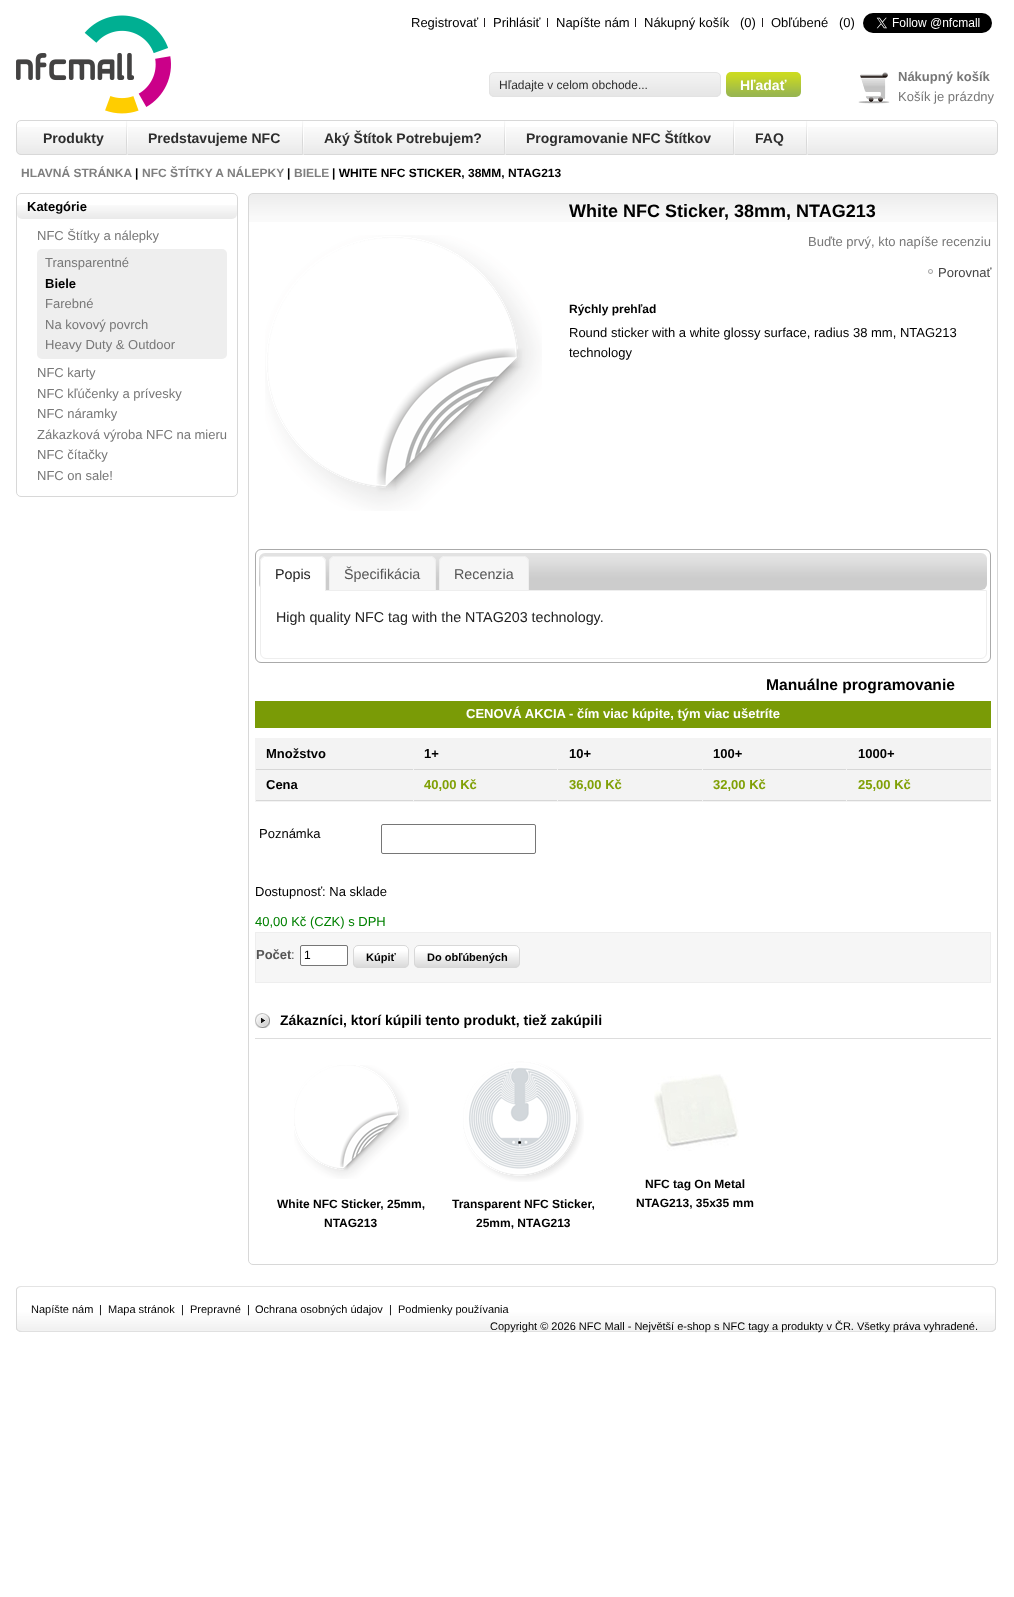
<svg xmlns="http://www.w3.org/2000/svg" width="1014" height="1597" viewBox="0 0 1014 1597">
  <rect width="100%" height="100%" fill="rgb(255,255,255)"/>
  <image x="16" y="15" width="155" height="99" href="pic1.png"/>
  <text x="411" y="27" font-family="Liberation Sans" font-size="13" fill="rgb(0,0,0)">Registrovať</text>
  <rect x="484" y="18" width="1" height="9" fill="rgb(35,31,32)"/>
  <text x="493" y="27" font-family="Liberation Sans" font-size="13" fill="rgb(0,0,0)">Prihlásiť</text>
  <rect x="547" y="18" width="1" height="9" fill="rgb(35,31,32)"/>
  <text x="556" y="27" font-family="Liberation Sans" font-size="13" fill="rgb(0,0,0)">Napíšte nám</text>
  <rect x="635" y="18" width="1" height="9" fill="rgb(35,31,32)"/>
  <g font-family="Liberation Sans" font-size="13" fill="rgb(0,0,0)">
    <text x="644" y="27">Nákupný košík</text>
    <text x="740" y="27">(0)</text>
  </g>
  <rect x="762" y="18" width="1" height="9" fill="rgb(35,31,32)"/>
  <g font-family="Liberation Sans" font-size="13" fill="rgb(0,0,0)">
    <text x="771" y="27">Obľúbené</text>
    <text x="839" y="27">(0)</text>
  </g>
  <image x="863" y="13" width="129" height="20" href="pic2.png"/>
  <image x="489" y="73" width="232" height="24" href="pic3.png"/>
  <rect x="489.5" y="72.5" width="231" height="24" rx="4.5" fill="none" stroke="rgb(227,227,227)"/>
  <text x="499" y="89" font-family="Liberation Sans" font-size="12" fill="rgb(46,46,46)">Hľadajte v celom obchode...</text>
  <image x="726" y="72" width="75" height="25" href="pic4.png"/>
  <text x="740" y="90" font-family="Liberation Sans" font-size="14" font-weight="bold" fill="rgb(255,255,255)">Hľadať</text>
  <image x="858" y="72" width="32" height="32" href="pic5.png"/>
  <text x="898" y="81" font-family="Liberation Sans" font-size="13" font-weight="bold" fill="rgb(119,119,119)">Nákupný košík</text>
  <text x="898" y="101" font-family="Liberation Sans" font-size="13" fill="rgb(119,119,119)">Košík je prázdny</text>
  <image x="16" y="127" width="982" height="28" href="pic6.png"/>
  <rect x="16.5" y="120.5" width="981" height="34" rx="4.5" fill="none" stroke="rgb(216,216,216)"/>
  <image x="126" y="121" width="2" height="34" href="pic7.png"/>
  <text x="43" y="143" font-family="Liberation Sans" font-size="14" font-weight="bold" fill="rgb(46,46,46)">Produkty</text>
  <image x="302" y="121" width="2" height="34" href="pic7.png"/>
  <text x="148" y="143" font-family="Liberation Sans" font-size="14" font-weight="bold" fill="rgb(46,46,46)">Predstavujeme NFC</text>
  <image x="504" y="121" width="2" height="34" href="pic7.png"/>
  <text x="324" y="143" font-family="Liberation Sans" font-size="14" font-weight="bold" fill="rgb(46,46,46)">Aký Štítok Potrebujem?</text>
  <image x="733" y="121" width="2" height="34" href="pic7.png"/>
  <text x="526" y="143" font-family="Liberation Sans" font-size="14" font-weight="bold" fill="rgb(46,46,46)">Programovanie NFC Štítkov</text>
  <image x="806" y="121" width="2" height="34" href="pic7.png"/>
  <text x="755" y="143" font-family="Liberation Sans" font-size="14" font-weight="bold" fill="rgb(46,46,46)">FAQ</text>
  <text x="21" y="177" font-family="Liberation Sans" font-size="12" font-weight="bold" fill="rgb(127,127,127)">HLAVNÁ STRÁNKA</text>
  <text x="135" y="177" font-family="Liberation Sans" font-size="12" font-weight="bold" fill="rgb(0,0,0)">|</text>
  <text x="142" y="177" font-family="Liberation Sans" font-size="12" font-weight="bold" fill="rgb(127,127,127)">NFC ŠTÍTKY A NÁLEPKY</text>
  <text x="287" y="177" font-family="Liberation Sans" font-size="12" font-weight="bold" fill="rgb(0,0,0)">|</text>
  <text x="294" y="177" font-family="Liberation Sans" font-size="12" font-weight="bold" fill="rgb(127,127,127)">BIELE</text>
  <text x="332" y="177" font-family="Liberation Sans" font-size="12" font-weight="bold" fill="rgb(0,0,0)">| WHITE NFC STICKER, 38MM, NTAG213</text>
  <rect x="16.5" y="193.5" width="221" height="303" rx="4.5" fill="none" stroke="rgb(216,216,216)"/>
  <image x="17" y="205" width="220" height="14" href="pic8.png"/>
  <text x="27" y="211" font-family="Liberation Sans" font-size="13" font-weight="bold" fill="rgb(0,0,0)">Kategórie</text>
  <text x="37" y="240" font-family="Liberation Sans" font-size="13" fill="rgb(119,119,119)">NFC Štítky a nálepky</text>
  <rect x="37" y="249" width="190" height="110" rx="5" fill="rgb(238,238,238)"/>
  <text x="45" y="267" font-family="Liberation Sans" font-size="13" fill="rgb(119,119,119)">Transparentné</text>
  <text x="45" y="288" font-family="Liberation Sans" font-size="13" font-weight="bold" fill="rgb(0,0,0)">Biele</text>
  <g font-family="Liberation Sans" font-size="13" fill="rgb(119,119,119)">
    <text>
      <tspan x="45" y="308">Farebné</tspan>
      <tspan x="45" y="329">Na kovový povrch</tspan>
      <tspan x="45" y="349">Heavy Duty &amp; Outdoor</tspan>
    </text>
    <text>
      <tspan x="37" y="377">NFC karty</tspan>
      <tspan x="37" y="398">NFC kľúčenky a prívesky</tspan>
      <tspan x="37" y="418">NFC náramky</tspan>
      <tspan x="37" y="439">Zákazková výroba NFC na mieru</tspan>
      <tspan x="37" y="459">NFC čítačky</tspan>
      <tspan x="37" y="480">NFC on sale!</tspan>
    </text>
  </g>
  <image x="248" y="194" width="750" height="28" href="pic9.png"/>
  <rect x="248.5" y="193.5" width="749" height="1071" rx="4.5" fill="none" stroke="rgb(216,216,216)"/>
  <image x="265" y="235" width="277" height="276" href="pic10.png"/>
  <text x="569" y="217" font-family="Liberation Sans" font-size="18" font-weight="bold" fill="rgb(0,0,0)">White NFC Sticker, 38mm, NTAG213</text>
  <text x="808" y="246" font-family="Liberation Sans" font-size="13" fill="rgb(119,119,119)">Buďte prvý, kto napíše recenziu</text>
  <image x="928" y="269" width="5" height="5" href="pic11.png"/>
  <text x="938" y="277" font-family="Liberation Sans" font-size="13" fill="rgb(68,68,68)">Porovnať</text>
  <text x="569" y="313" font-family="Liberation Sans" font-size="12" font-weight="bold" fill="rgb(0,0,0)">Rýchly prehľad</text>
  <g font-family="Liberation Sans" font-size="13" fill="rgb(0,0,0)">
    <text>
      <tspan x="569" y="337">Round sticker with a white glossy surface, radius 38 mm, NTAG213</tspan>
      <tspan x="569" y="357">technology</tspan>
    </text>
  </g>
  <rect x="255.5" y="549.5" width="735" height="113" rx="5.5" fill="none" stroke="rgb(170,170,170)"/>
  <image x="259" y="553" width="728" height="37" href="pic12.png"/>
  <path d="M260.5 590.5H986.5V653C986.5 656 984 658.5 981 658.5H266C263 658.5 260.5 656 260.5 653Z" fill="none" stroke="rgb(238,238,238)"/>
  <path d="M266 556H320C323.5 556 326 558.5 326 562V591H260V562C260 558.5 262.5 556 266 556Z" fill="rgb(255,255,255)"/>
  <path d="M266 556H320C323 556 326 559 326 562V591H260V562C260 559 263 556 266 556ZM266 557H320C323 557 325 559 325 562V591H261V562C261 559 263 557 266 557Z" fill="rgb(238,238,238)" fill-rule="evenodd"/>
  <text x="275" y="579" font-family="Liberation Sans" font-size="14.3" fill="rgb(34,34,34)">Popis</text>
  <path d="M335 556H430C433.5 556 436 558.5 436 562V590H329V562C329 558.5 331.5 556 335 556Z" fill="rgb(246,246,246)"/>
  <path d="M335 556H430C433 556 436 559 436 562V590H329V562C329 559 332 556 335 556ZM335 557H430C433 557 435 559 435 562V590H330V562C330 559 332 557 335 557Z" fill="rgb(238,238,238)" fill-rule="evenodd"/>
  <text x="344" y="579" font-family="Liberation Sans" font-size="14.3" fill="rgb(85,85,85)">Špecifikácia</text>
  <path d="M445 556H523C526.5 556 529 558.5 529 562V590H439V562C439 558.5 441.5 556 445 556Z" fill="rgb(246,246,246)"/>
  <path d="M445 556H523C526 556 529 559 529 562V590H439V562C439 559 442 556 445 556ZM445 557H523C526 557 528 559 528 562V590H440V562C440 559 442 557 445 557Z" fill="rgb(238,238,238)" fill-rule="evenodd"/>
  <text x="454" y="579" font-family="Liberation Sans" font-size="14.3" fill="rgb(85,85,85)">Recenzia</text>
  <text x="276" y="622" font-family="Liberation Sans" font-size="14.3" fill="rgb(34,34,34)">High quality NFC tag with the NTAG203 technology.</text>
  <text x="766" y="690" font-family="Liberation Sans" font-size="15.6" font-weight="bold" fill="rgb(0,0,0)">Manuálne programovanie</text>
  <rect x="255" y="701" width="736" height="27" fill="rgb(122,155,6)"/>
  <text x="466" y="718" font-family="Liberation Sans" font-size="13" font-weight="bold" fill="rgb(255,255,255)">CENOVÁ AKCIA - čím viac kúpite, tým viac ušetríte</text>
  <rect x="255" y="738" width="736" height="64" fill="rgb(243,243,243)"/>
  <rect x="256" y="769" width="157" height="1" fill="rgb(215,215,215)"/>
  <text x="266" y="758" font-family="Liberation Sans" font-size="13" font-weight="bold" fill="rgb(0,0,0)">Množstvo</text>
  <rect x="256" y="800" width="157" height="1" fill="rgb(215,215,215)"/>
  <text x="266" y="789" font-family="Liberation Sans" font-size="13" font-weight="bold" fill="rgb(0,0,0)">Cena</text>
  <rect x="414" y="769" width="143" height="1" fill="rgb(215,215,215)"/>
  <text x="424" y="758" font-family="Liberation Sans" font-size="13" font-weight="bold" fill="rgb(0,0,0)">1+</text>
  <rect x="414" y="800" width="143" height="1" fill="rgb(215,215,215)"/>
  <text x="424" y="789" font-family="Liberation Sans" font-size="13" font-weight="bold" fill="rgb(128,160,6)">40,00 Kč</text>
  <rect x="558" y="769" width="144" height="1" fill="rgb(215,215,215)"/>
  <text x="569" y="758" font-family="Liberation Sans" font-size="13" font-weight="bold" fill="rgb(0,0,0)">10+</text>
  <rect x="558" y="800" width="144" height="1" fill="rgb(215,215,215)"/>
  <text x="569" y="789" font-family="Liberation Sans" font-size="13" font-weight="bold" fill="rgb(128,160,6)">36,00 Kč</text>
  <rect x="703" y="769" width="143" height="1" fill="rgb(215,215,215)"/>
  <text x="713" y="758" font-family="Liberation Sans" font-size="13" font-weight="bold" fill="rgb(0,0,0)">100+</text>
  <rect x="703" y="800" width="143" height="1" fill="rgb(215,215,215)"/>
  <text x="713" y="789" font-family="Liberation Sans" font-size="13" font-weight="bold" fill="rgb(128,160,6)">32,00 Kč</text>
  <rect x="847" y="769" width="144" height="1" fill="rgb(215,215,215)"/>
  <text x="858" y="758" font-family="Liberation Sans" font-size="13" font-weight="bold" fill="rgb(0,0,0)">1000+</text>
  <rect x="847" y="800" width="144" height="1" fill="rgb(215,215,215)"/>
  <text x="858" y="789" font-family="Liberation Sans" font-size="13" font-weight="bold" fill="rgb(128,160,6)">25,00 Kč</text>
  <text x="259" y="838" font-family="Liberation Sans" font-size="13" fill="rgb(0,0,0)">Poznámka</text>
  <rect x="381.5" y="824.5" width="154" height="29" rx="1.5" fill="none" stroke="rgb(118,118,118)"/>
  <text x="255" y="896" font-family="Liberation Sans" font-size="13" fill="rgb(0,0,0)">Dostupnosť: Na sklade</text>
  <text x="255" y="926" font-family="Liberation Sans" font-size="13" fill="rgb(0,128,0)">40,00 Kč (CZK) s DPH</text>
  <rect x="255.5" y="932.5" width="735" height="50" fill="rgb(246,246,246)" stroke="rgb(238,238,238)"/>
  <text x="256" y="959" font-family="Liberation Sans" font-size="13" font-weight="bold" fill="rgb(85,85,85)">Počet</text>
  <text x="291" y="959" font-family="Liberation Sans" font-size="13" fill="rgb(85,85,85)">:</text>
  <rect x="300.5" y="945.5" width="47" height="20" rx="1.5" fill="rgb(255,255,255)" stroke="rgb(118,118,118)"/>
  <text x="304" y="959" font-family="Liberation Sans" font-size="12" fill="rgb(0,0,0)">1</text>
  <image x="353" y="946" width="56" height="22" href="pic13.png"/>
  <rect x="353.5" y="945.5" width="55" height="22" rx="4.5" fill="none" stroke="rgb(216,216,216)"/>
  <text x="366" y="961" font-family="Liberation Sans" font-size="11" font-weight="bold" fill="rgb(0,0,0)">Kúpiť</text>
  <image x="414" y="946" width="106" height="22" href="pic14.png"/>
  <rect x="414.5" y="945.5" width="105" height="22" rx="4.5" fill="none" stroke="rgb(216,216,216)"/>
  <text x="427" y="961" font-family="Liberation Sans" font-size="11" font-weight="bold" fill="rgb(0,0,0)">Do obľúbených</text>
  <rect x="255" y="1038" width="736" height="1" fill="rgb(221,221,221)"/>
  <image x="255" y="1013" width="15" height="15" href="pic15.png"/>
  <text x="280" y="1025" font-family="Liberation Sans" font-size="14" font-weight="bold" fill="rgb(0,0,0)">Zákazníci, ktorí kúpili tento produkt, tiež zakúpili</text>
  <image x="654" y="1074" width="85" height="77" href="pic16.png"/>
  <g font-family="Liberation Sans" font-size="12" font-weight="bold" fill="rgb(0,0,0)">
    <text x="645" y="1188">NFC tag On Metal</text>
    <text x="636" y="1207">NTAG213, 35x35 mm</text>
  </g>
  <image x="294" y="1065" width="115" height="114" href="pic17.png"/>
  <g font-family="Liberation Sans" font-size="12" font-weight="bold" fill="rgb(0,0,0)">
    <text x="277" y="1208">White NFC Sticker, 25mm,</text>
    <text x="324" y="1227">NTAG213</text>
  </g>
  <image x="463" y="1061" width="121" height="121" href="pic18.png"/>
  <g font-family="Liberation Sans" font-size="12" font-weight="bold" fill="rgb(0,0,0)">
    <text x="452" y="1208">Transparent NFC Sticker,</text>
    <text x="476" y="1227">25mm, NTAG213</text>
  </g>
  <image x="16" y="1286" width="980" height="46" href="pic19.png"/>
  <g font-family="Liberation Sans" font-size="11" fill="rgb(0,0,0)">
    <text x="31" y="1313">Napíšte nám</text>
    <text x="99" y="1313">|</text>
    <text x="108" y="1313">Mapa stránok</text>
    <text x="181" y="1313">|</text>
    <text x="190" y="1313">Prepravné</text>
    <text x="247" y="1313">|</text>
    <text x="255" y="1313">Ochrana osobných údajov</text>
    <text x="389" y="1313">|</text>
    <text x="398" y="1313">Podmienky používania</text>
    <text x="490" y="1330">Copyright © 2026 NFC Mall - Největší e-shop s NFC tagy a produkty v ČR. Všetky práva vyhradené.</text>
  </g>
</svg>
